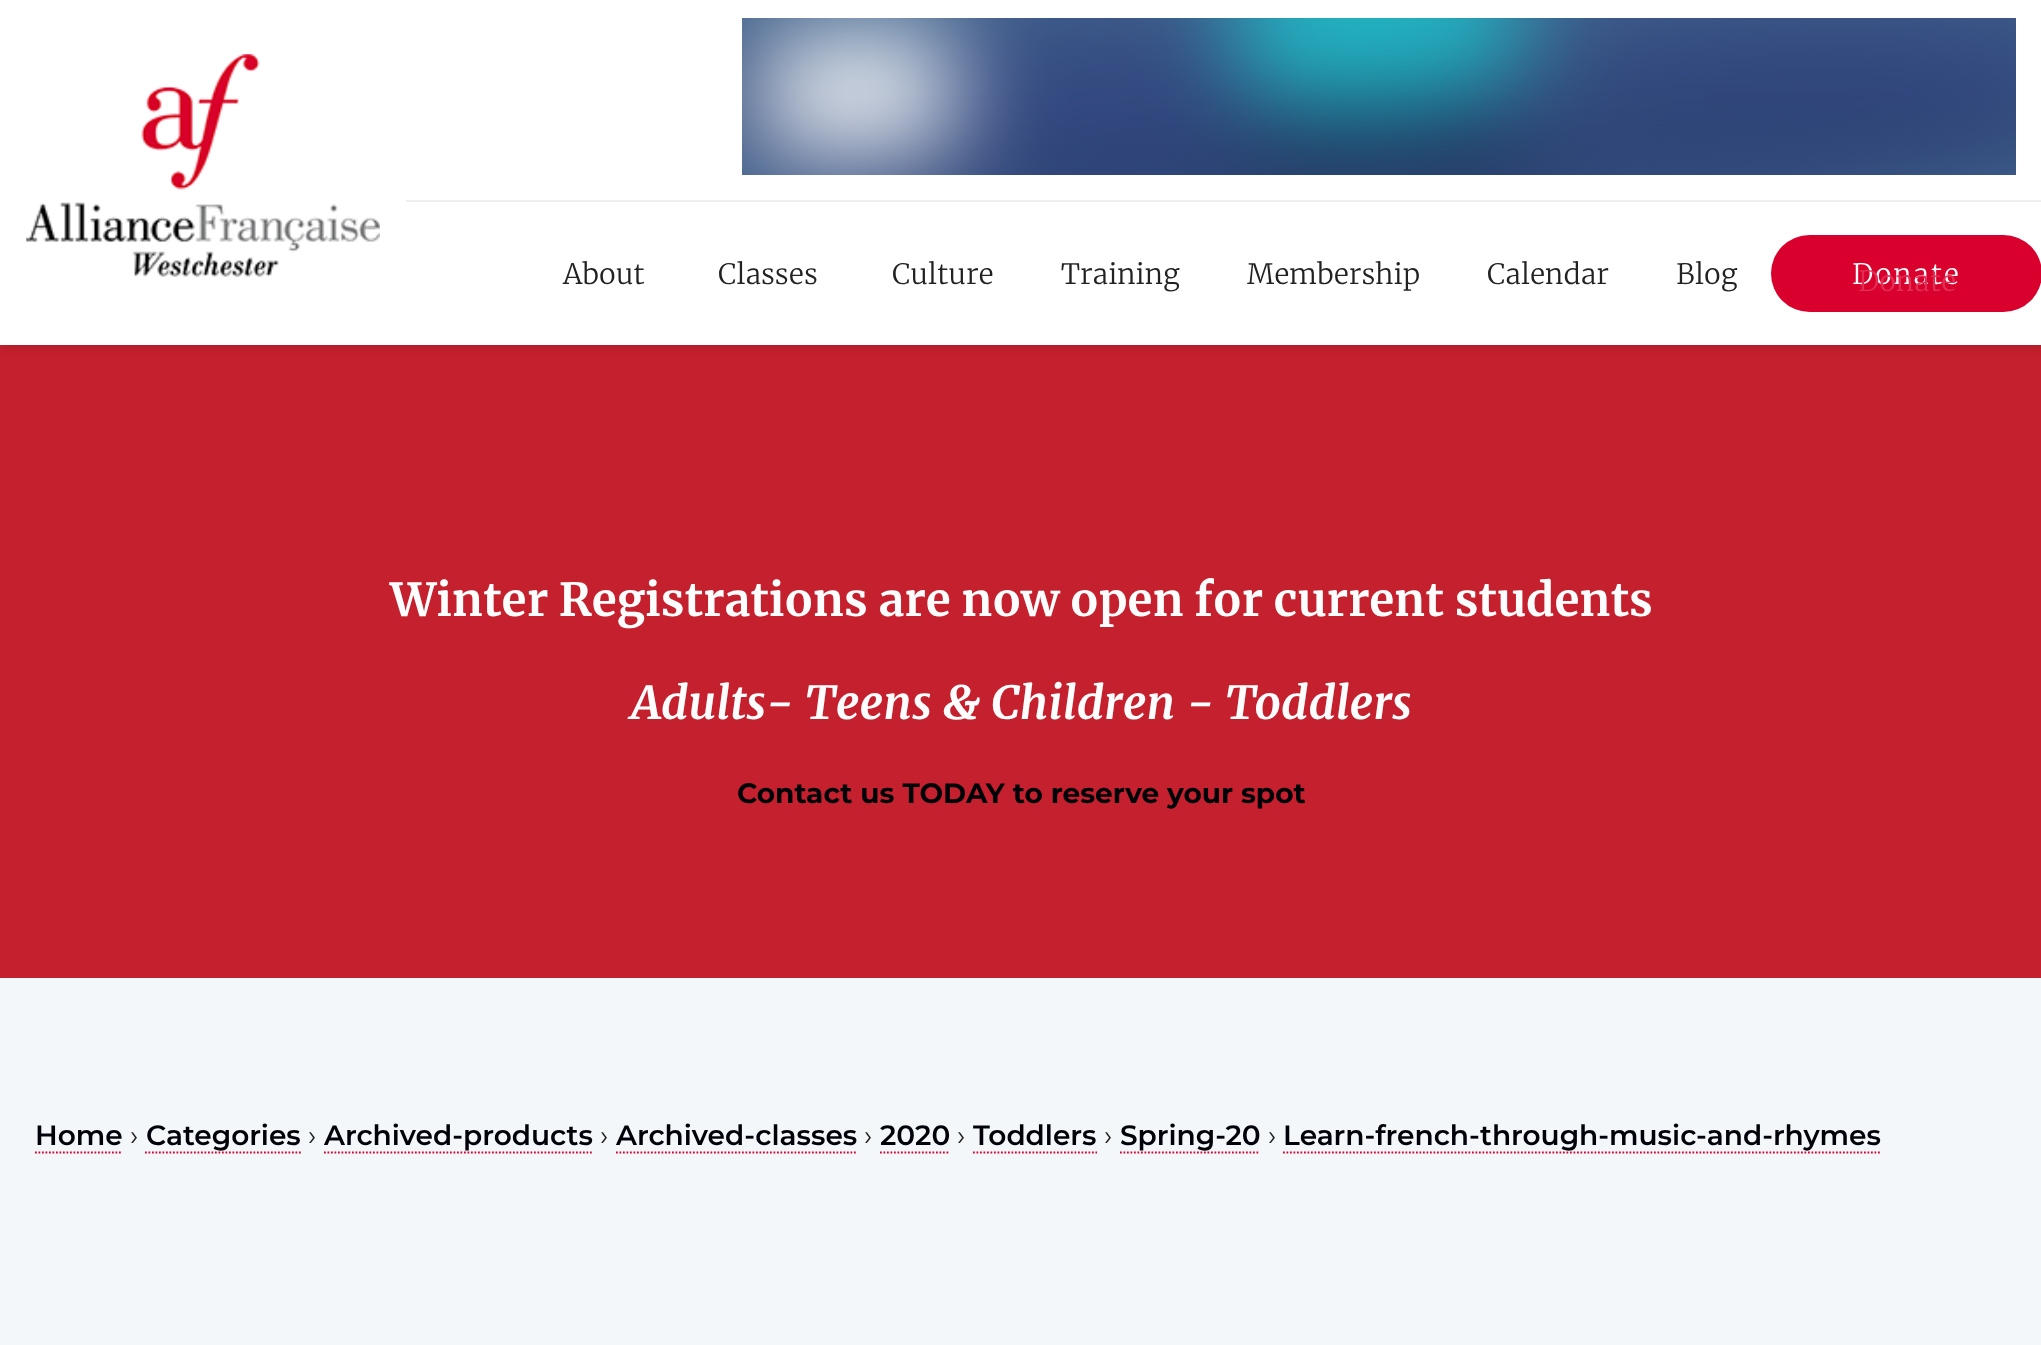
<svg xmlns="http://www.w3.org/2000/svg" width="2041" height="1345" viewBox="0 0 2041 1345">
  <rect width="100%" height="100%" fill="rgb(244,247,250)"/>
  <rect x="0" y="345" width="2041" height="633" fill="rgb(197,32,46)"/>
  <rect x="0" y="4" width="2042" height="344" fill="rgba(0,0,0,0.11)" filter="blur(4.5px)"/>
  <rect x="0" y="0" width="2041" height="345" fill="rgb(255,255,255)"/>
  <image x="26" y="54" width="354" height="223" href="pic1.png"/>
  <rect x="406" y="200" width="1635" height="2" fill="rgb(238,238,238)"/>
  <image x="742" y="18" width="1274" height="157" href="pic2.png"/>
  <g font-family="Merriweather" font-size="28" font-weight="300" fill="rgb(34,34,34)">
    <text x="563" y="284">About</text>
    <text x="718" y="284">Classes</text>
    <text x="892" y="284">Culture</text>
    <text x="1061" y="284">Training</text>
    <text x="1247" y="284">Membership</text>
    <text x="1487" y="284">Calendar</text>
    <text x="1676" y="284">Blog</text>
  </g>
  <rect x="1771" y="235" width="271" height="77" rx="38.5" fill="rgb(218,0,46)"/>
  <text x="1852" y="284" font-family="Merriweather" font-size="28" font-weight="300" letter-spacing="1.75" fill="rgb(252,253,252)">Donate</text>
  <text x="1858" y="291" font-family="Merriweather" font-size="28" font-weight="300" fill="rgb(225,47,84)">Donate</text>
  <text x="390" y="616" font-family="Merriweather" font-size="45.5" font-weight="bold" fill="rgb(252,253,252)">Winter Registrations are now open for current students</text>
  <text x="631" y="719" font-family="Merriweather" font-size="45.5" font-weight="bold" font-style="italic" fill="rgb(252,253,252)">Adults- Teens &amp; Children - Toddlers</text>
  <text x="737" y="803" font-family="Montserrat" font-size="28" font-weight="bold" fill="rgb(1,2,9)">Contact us TODAY to reserve your spot</text>
  <text x="35" y="1145" font-family="Montserrat" font-size="28" font-weight="600" fill="rgb(1,2,9)">Home</text>
  <path d="M35 1152.5H122.5" fill="none" stroke="rgb(218,0,46)" stroke-width="1.8" stroke-dasharray="1.75 1.75"/>
  <text x="130" y="1145" font-family="Montserrat" font-size="28" fill="rgb(34,34,34)">›</text>
  <text x="146" y="1145" font-family="Montserrat" font-size="28" font-weight="600" fill="rgb(1,2,9)">Categories</text>
  <path d="M145 1152.5H301" fill="none" stroke="rgb(218,0,46)" stroke-width="1.8" stroke-dasharray="1.75 1.75"/>
  <text x="308" y="1145" font-family="Montserrat" font-size="28" fill="rgb(34,34,34)">›</text>
  <text x="324" y="1145" font-family="Montserrat" font-size="28" font-weight="600" fill="rgb(1,2,9)">Archived-products</text>
  <path d="M324 1152.5H593" fill="none" stroke="rgb(218,0,46)" stroke-width="1.8" stroke-dasharray="1.75 1.75"/>
  <text x="600" y="1145" font-family="Montserrat" font-size="28" fill="rgb(34,34,34)">›</text>
  <text x="616" y="1145" font-family="Montserrat" font-size="28" font-weight="600" fill="rgb(1,2,9)">Archived-classes</text>
  <path d="M616 1152.5H857.5" fill="none" stroke="rgb(218,0,46)" stroke-width="1.8" stroke-dasharray="1.75 1.75"/>
  <text x="864" y="1145" font-family="Montserrat" font-size="28" fill="rgb(34,34,34)">›</text>
  <text x="880" y="1145" font-family="Montserrat" font-size="28" font-weight="600" fill="rgb(1,2,9)">2020</text>
  <path d="M880 1152.5H950" fill="none" stroke="rgb(218,0,46)" stroke-width="1.8" stroke-dasharray="1.75 1.75"/>
  <text x="957" y="1145" font-family="Montserrat" font-size="28" fill="rgb(34,34,34)">›</text>
  <text x="973" y="1145" font-family="Montserrat" font-size="28" font-weight="600" fill="rgb(1,2,9)">Toddlers</text>
  <path d="M973 1152.5H1097" fill="none" stroke="rgb(218,0,46)" stroke-width="1.8" stroke-dasharray="1.75 1.75"/>
  <text x="1104" y="1145" font-family="Montserrat" font-size="28" fill="rgb(34,34,34)">›</text>
  <text x="1120" y="1145" font-family="Montserrat" font-size="28" font-weight="600" fill="rgb(1,2,9)">Spring-20</text>
  <path d="M1120 1152.5H1260" fill="none" stroke="rgb(218,0,46)" stroke-width="1.8" stroke-dasharray="1.75 1.75"/>
  <text x="1268" y="1145" font-family="Montserrat" font-size="28" fill="rgb(34,34,34)">›</text>
  <text x="1283" y="1145" font-family="Montserrat" font-size="28" font-weight="600" fill="rgb(1,2,9)">Learn-french-through-music-and-rhymes</text>
  <path d="M1283 1152.5H1881" fill="none" stroke="rgb(218,0,46)" stroke-width="1.8" stroke-dasharray="1.75 1.75"/>
</svg>
